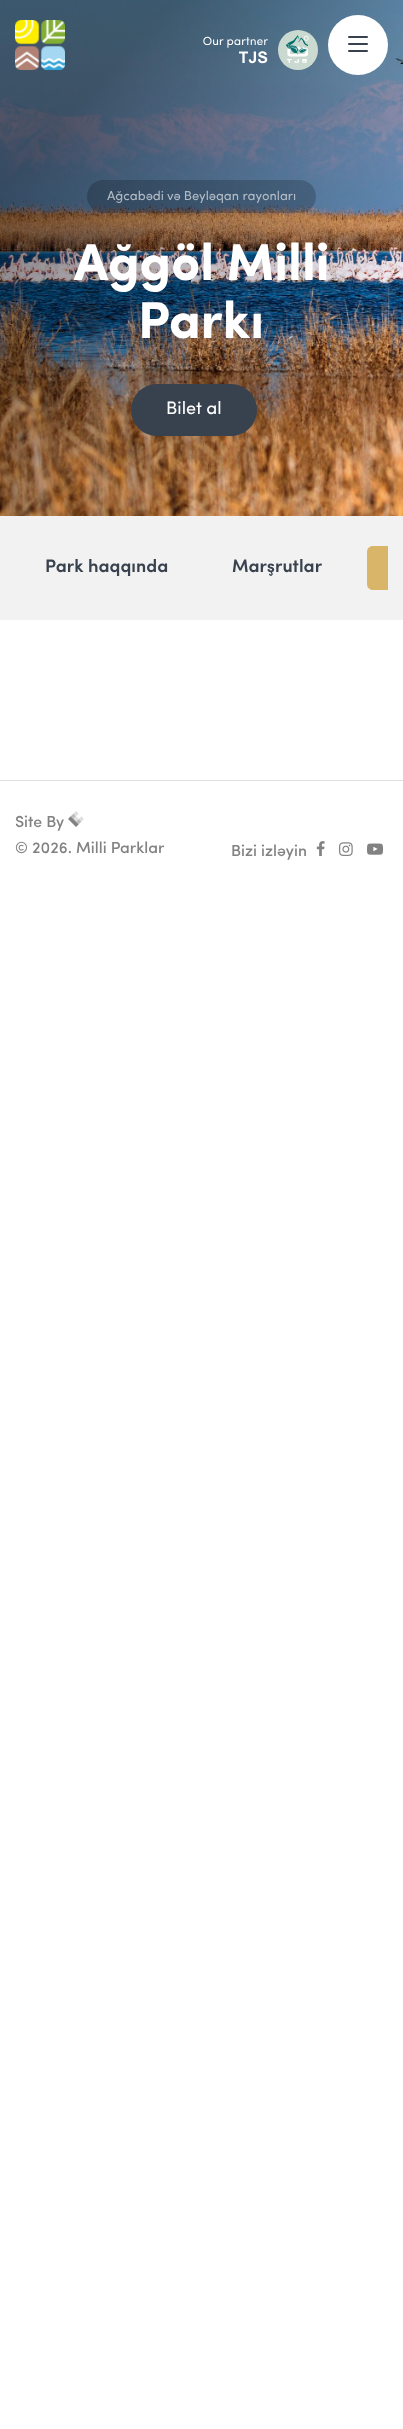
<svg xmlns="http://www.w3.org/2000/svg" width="403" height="2429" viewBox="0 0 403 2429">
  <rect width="100%" height="100%" fill="rgb(255,255,255)"/>
  <image x="0" y="0" width="403" height="516" href="pic3.png"/>
  <image x="15" y="20" width="50" height="50" href="pic1.png"/>
  <image x="203" y="30" width="115" height="40" href="pic2.png"/>
  <circle cx="358" cy="45" r="30" fill="rgb(255,255,255)"/>
  <rect x="348" y="36" width="20" height="2" rx="1" fill="rgb(56,65,78)"/>
  <rect x="348" y="43" width="20" height="2" rx="1" fill="rgb(56,65,78)"/>
  <rect x="348" y="50" width="20" height="2" rx="1" fill="rgb(56,65,78)"/>
  <rect x="87" y="180" width="229" height="33" rx="16.5" fill="rgba(0,0,0,0.2)"/>
  <text x="107" y="200" font-family="Sofia" font-size="13" fill="rgb(176,186,196)">Ağcabədi və Beyləqan rayonları</text>
  <g font-family="Sofia" font-size="52" font-weight="bold" fill="rgb(255,255,255)">
    <text x="74" y="280">Ağgöl Milli</text>
    <text x="138" y="338">Parkı</text>
  </g>
  <rect x="131" y="384" width="126" height="52" rx="26" fill="rgb(56,65,78)"/>
  <text x="166" y="414" font-family="Sofia" font-size="18" fill="rgb(255,255,255)">Bilet al</text>
  <rect x="0" y="516" width="403" height="104" fill="rgb(242,242,242)"/>
  <g font-family="Sofia" font-size="18" font-weight="600" fill="rgb(56,65,78)">
    <text x="45" y="572">Park haqqında</text>
    <text x="232" y="572">Marşrutlar</text>
  </g>
  <path d="M373 546H388V590H373C369.5 590 367 587.5 367 584V552C367 548.5 369.5 546 373 546Z" fill="rgb(217,181,105)"/>
  <rect x="0" y="780" width="403" height="1" fill="rgb(224,224,224)"/>
  <text x="15" y="827" font-family="Sofia" font-size="16" font-weight="500" fill="rgb(130,130,130)">Site By</text>
  <image x="68" y="811" width="16" height="16" href="pic4.png"/>
  <g font-family="Sofia" font-size="16" font-weight="500" fill="rgb(130,130,130)">
    <text x="15" y="853">© 2026. Milli Parklar</text>
    <text x="231" y="856">Bizi izləyin</text>
  </g>
  <image x="316" y="841" width="9" height="15" href="pic5.png"/>
  <image x="339" y="842" width="14" height="14" href="pic6.png"/>
  <image x="367" y="843" width="16" height="12" href="pic7.png"/>
</svg>
